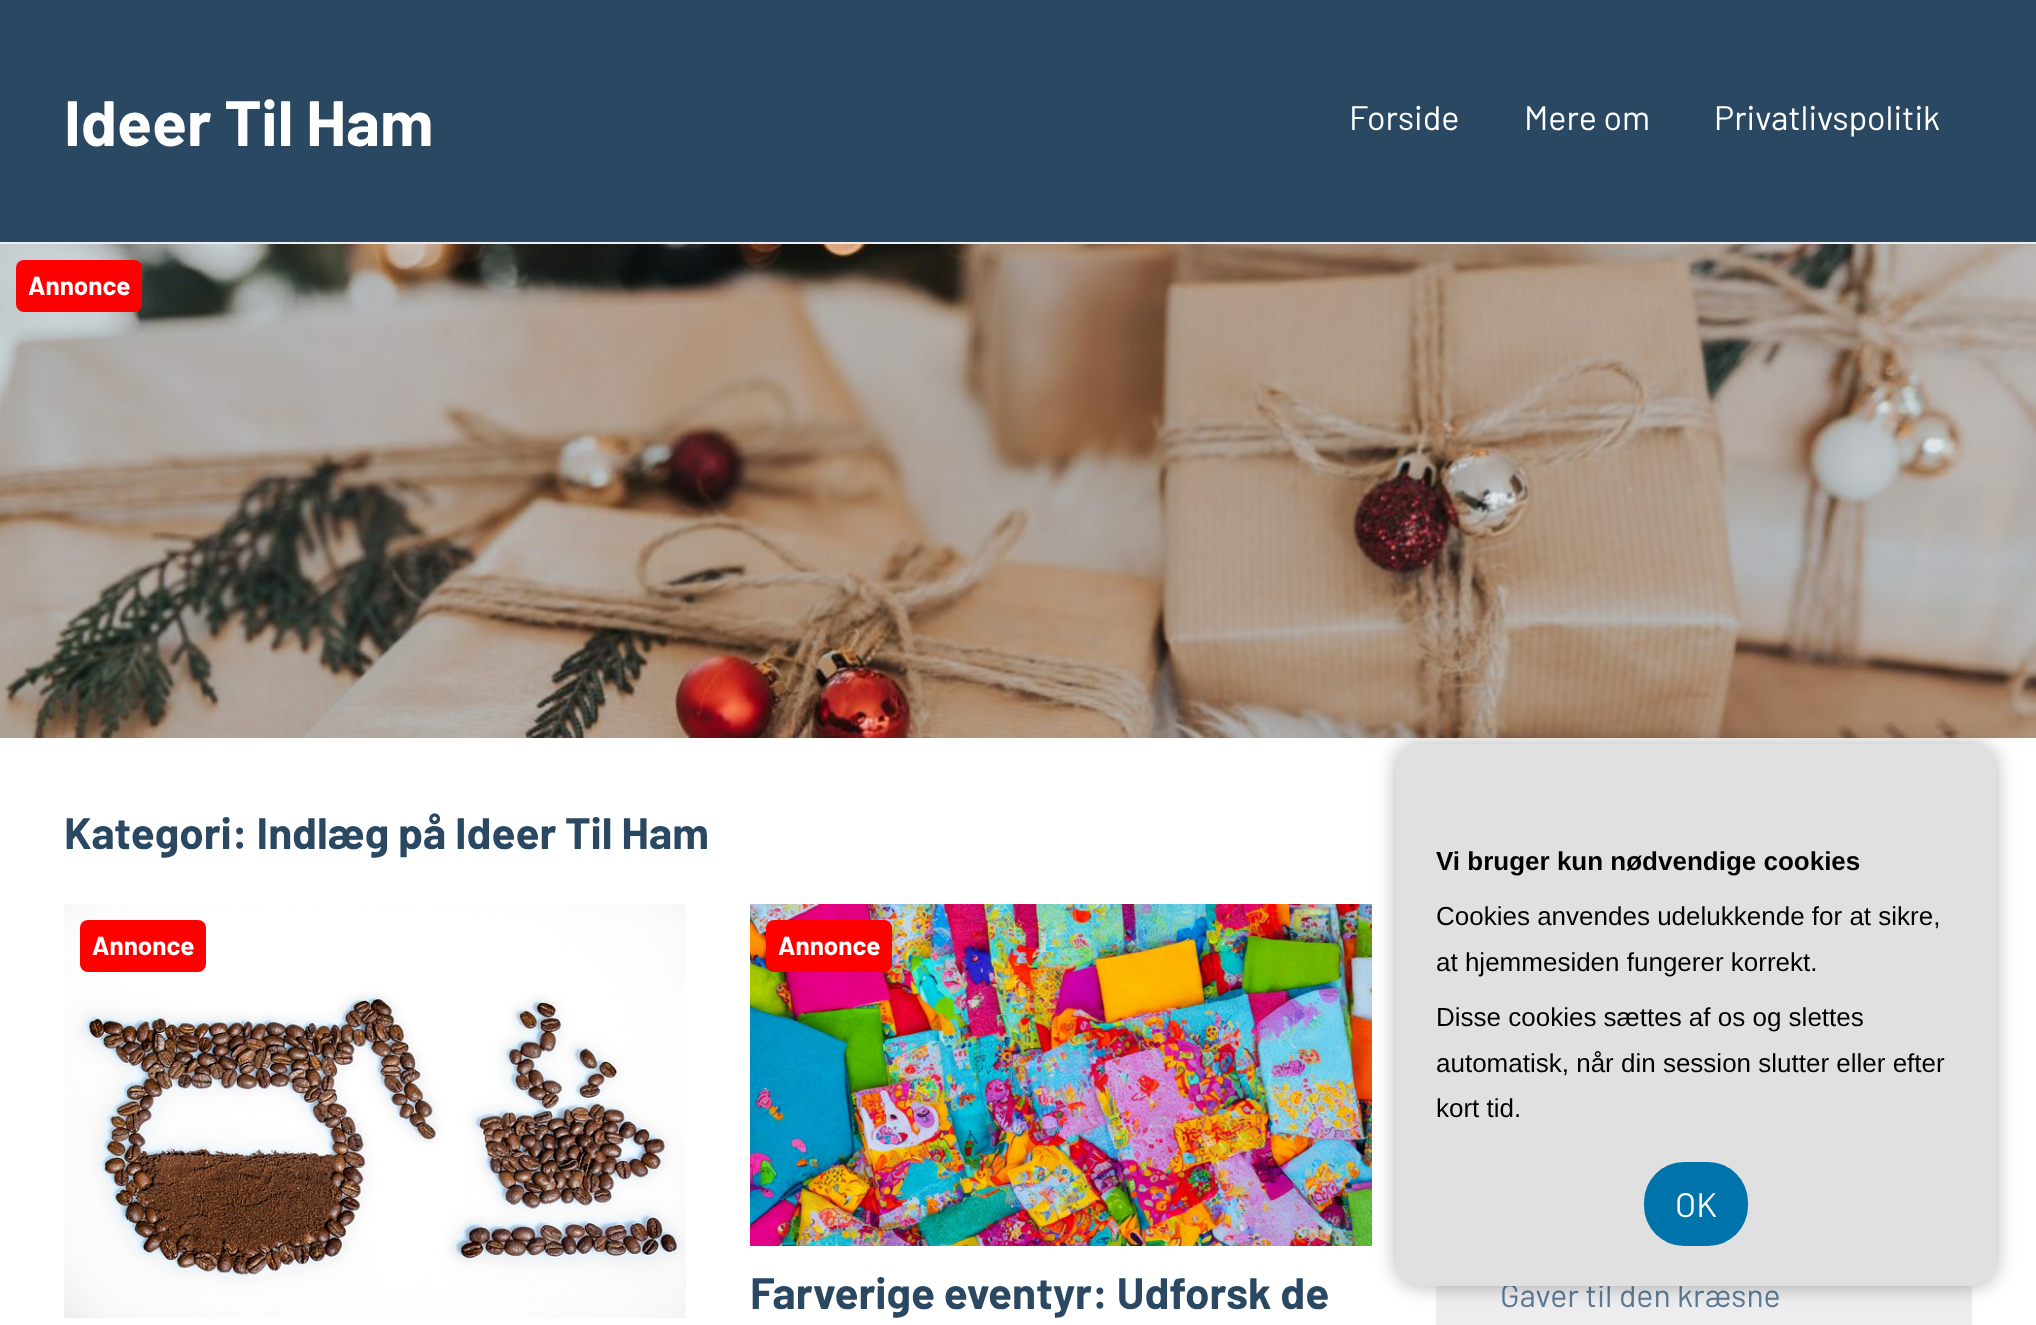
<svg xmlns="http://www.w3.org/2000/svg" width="2036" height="1325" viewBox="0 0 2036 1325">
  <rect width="100%" height="100%" fill="rgb(237,237,239)"/>
  <rect x="0" y="0" width="2036" height="242" fill="rgb(42,72,97)"/>
  <text x="64" y="146" font-family="Barlow" font-size="64" font-weight="bold" fill="rgb(255,255,255)">Ideer Til Ham</text>
  <g font-family="Barlow" font-size="34" fill="rgb(255,255,255)">
    <text x="1349" y="130">Forside</text>
    <text x="1524" y="130">Mere om</text>
    <text x="1714" y="130">Privatlivspolitik</text>
  </g>
  <image x="0" y="244" width="2036" height="494" href="pic1.png"/>
  <rect x="16" y="260" width="126" height="52" rx="8" fill="rgb(255,0,0)"/>
  <text x="28" y="295" font-family="Barlow" font-size="26" font-weight="bold" fill="rgb(255,255,255)">Annonce</text>
  <rect x="0" y="738" width="2036" height="587" fill="rgb(255,255,255)"/>
  <text x="64" y="849" font-family="Barlow" font-size="44" font-weight="bold" fill="rgb(42,72,97)">Kategori: Indlæg på Ideer Til Ham</text>
  <image x="64" y="904" width="622" height="414" href="pic2.png"/>
  <rect x="80" y="920" width="126" height="52" rx="8" fill="rgb(255,0,0)"/>
  <text x="92" y="955" font-family="Barlow" font-size="26" font-weight="bold" fill="rgb(255,255,255)">Annonce</text>
  <image x="750" y="904" width="622" height="342" href="pic3.png"/>
  <rect x="766" y="920" width="126" height="52" rx="8" fill="rgb(255,0,0)"/>
  <text x="778" y="955" font-family="Barlow" font-size="26" font-weight="bold" fill="rgb(255,255,255)">Annonce</text>
  <text x="750" y="1309" font-family="Barlow" font-size="44" font-weight="bold" fill="rgb(42,72,97)">Farverige eventyr: Udforsk de</text>
  <rect x="1436" y="1286" width="536" height="39" fill="rgb(237,237,239)"/>
  <text x="1500" y="1307" font-family="Barlow" font-size="32" fill="rgb(93,123,148)">Gaver til den kræsne</text>
  <rect x="1396" y="744" width="600" height="542" rx="24" fill="rgba(0,0,0,0.3)" filter="blur(10px)"/>
  <rect x="1396" y="744" width="600" height="542" rx="24" fill="rgb(224,224,224)"/>
  <text x="1436" y="870" font-family="Liberation Sans" font-size="26" font-weight="bold" fill="rgb(0,0,0)">Vi bruger kun nødvendige cookies</text>
  <g font-family="Liberation Sans" font-size="26" fill="rgb(0,0,0)">
    <text>
      <tspan x="1436" y="925">Cookies anvendes udelukkende for at sikre,</tspan>
      <tspan x="1436" y="971">at hjemmesiden fungerer korrekt.</tspan>
    </text>
    <text>
      <tspan x="1436" y="1026">Disse cookies sættes af os og slettes</tspan>
      <tspan x="1436" y="1072">automatisk, når din session slutter eller efter</tspan>
      <tspan x="1436" y="1117">kort tid.</tspan>
    </text>
  </g>
  <rect x="1644" y="1162" width="104" height="84" rx="40" fill="rgb(0,115,170)"/>
  <text x="1675" y="1217" font-family="Barlow" font-size="34" fill="rgb(255,255,255)">OK</text>
</svg>
